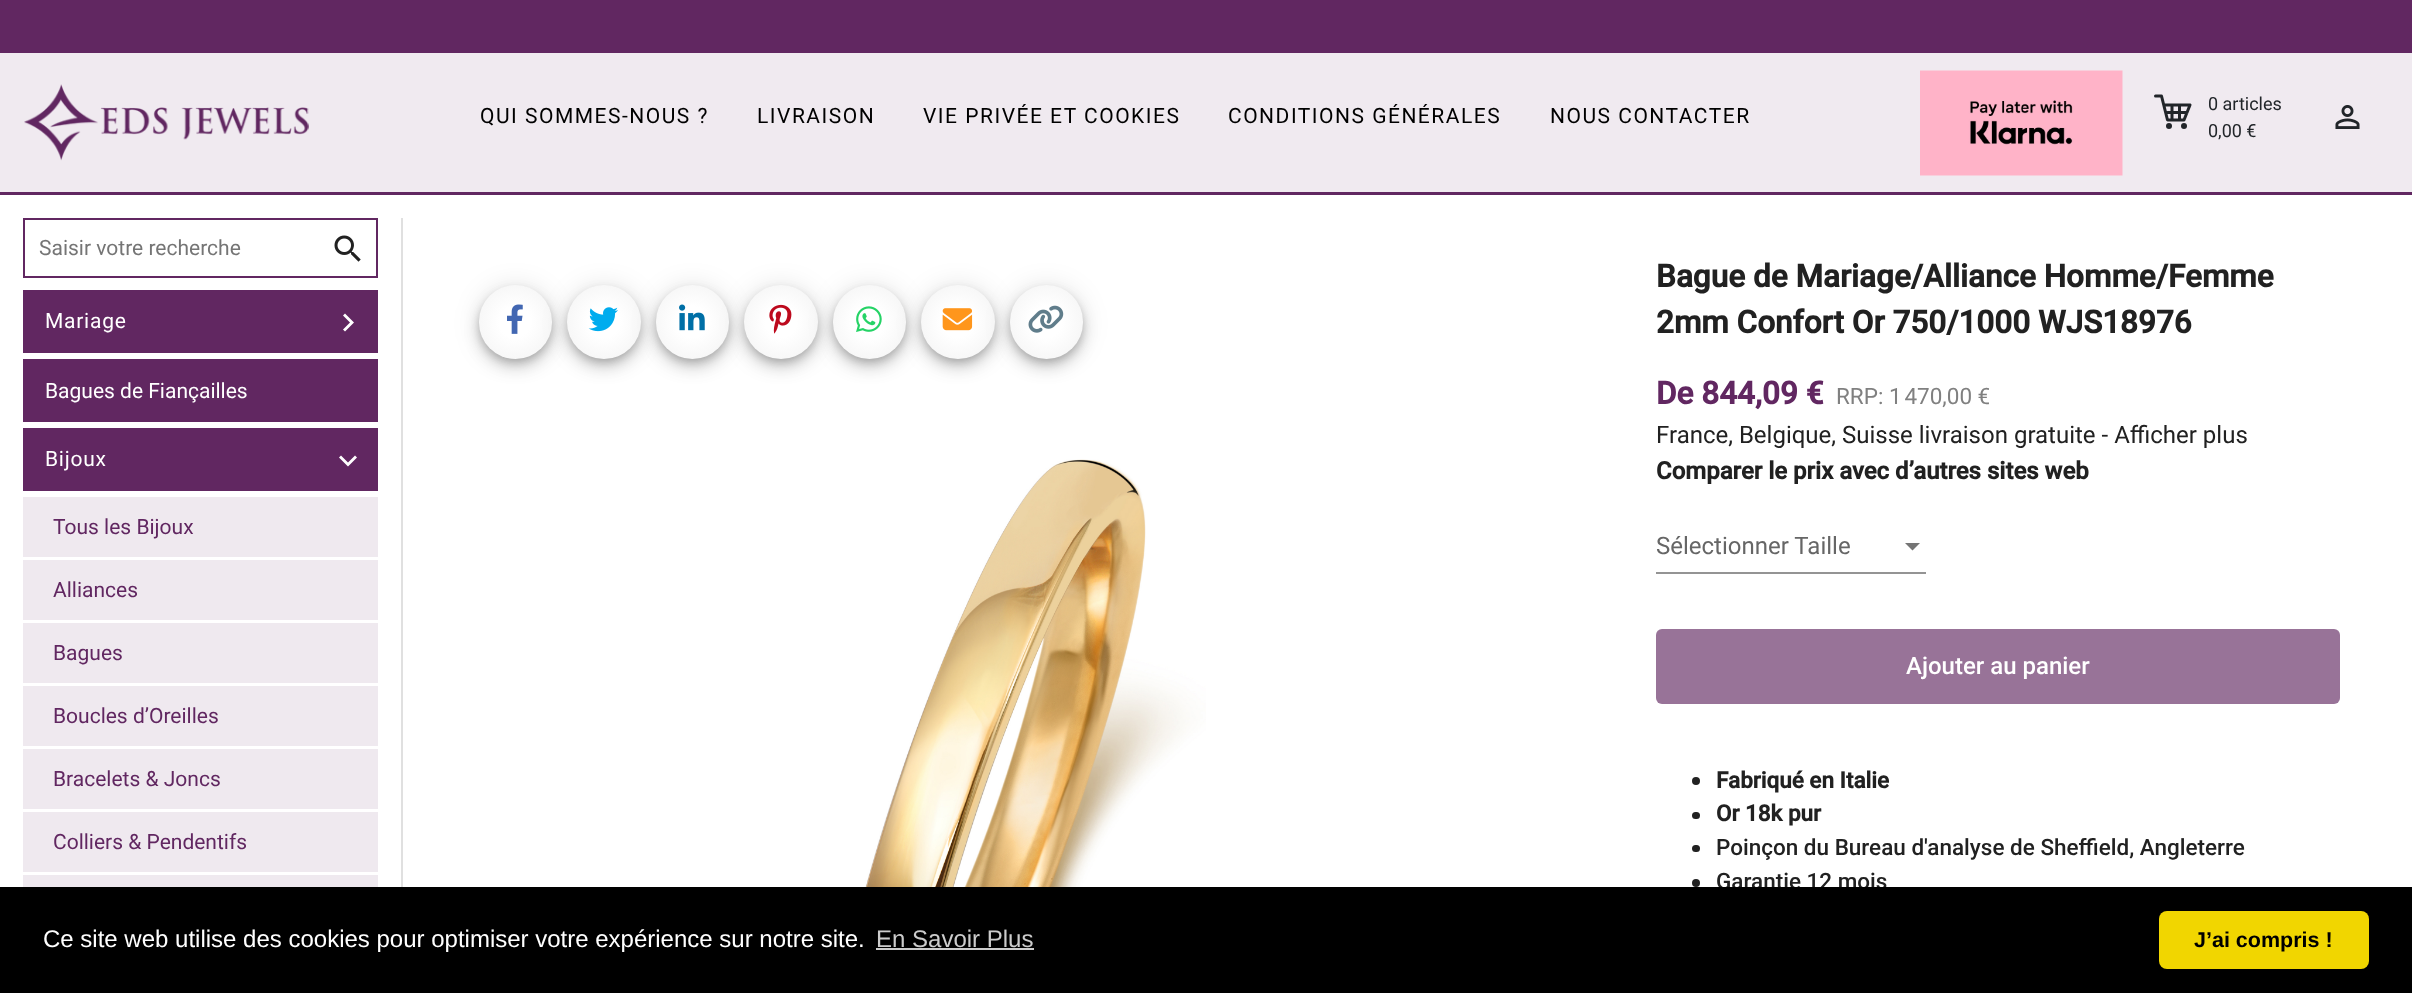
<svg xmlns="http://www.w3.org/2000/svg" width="2412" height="993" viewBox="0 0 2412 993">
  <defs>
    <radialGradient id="g1" gradientUnits="userSpaceOnUse" cx="515" cy="322" r="52"><stop offset="0.3" stop-color="rgb(255,255,255)"/><stop offset="1" stop-color="rgb(242,242,242)"/></radialGradient>
    <radialGradient id="g2" gradientUnits="userSpaceOnUse" cx="604" cy="322" r="52"><stop offset="0.3" stop-color="rgb(255,255,255)"/><stop offset="1" stop-color="rgb(242,242,242)"/></radialGradient>
    <radialGradient id="g3" gradientUnits="userSpaceOnUse" cx="692" cy="322" r="52"><stop offset="0.3" stop-color="rgb(255,255,255)"/><stop offset="1" stop-color="rgb(242,242,242)"/></radialGradient>
    <radialGradient id="g4" gradientUnits="userSpaceOnUse" cx="781" cy="322" r="52"><stop offset="0.3" stop-color="rgb(255,255,255)"/><stop offset="1" stop-color="rgb(242,242,242)"/></radialGradient>
    <radialGradient id="g5" gradientUnits="userSpaceOnUse" cx="869" cy="322" r="52"><stop offset="0.3" stop-color="rgb(255,255,255)"/><stop offset="1" stop-color="rgb(242,242,242)"/></radialGradient>
    <radialGradient id="g6" gradientUnits="userSpaceOnUse" cx="958" cy="322" r="52"><stop offset="0.3" stop-color="rgb(255,255,255)"/><stop offset="1" stop-color="rgb(242,242,242)"/></radialGradient>
    <radialGradient id="g7" gradientUnits="userSpaceOnUse" cx="1046" cy="322" r="52"><stop offset="0.3" stop-color="rgb(255,255,255)"/><stop offset="1" stop-color="rgb(242,242,242)"/></radialGradient>
  </defs>
  <rect width="100%" height="100%" fill="rgb(97,39,97)"/>
  <rect x="0" y="53" width="2412" height="139" fill="rgb(240,234,240)"/>
  <image x="24" y="84" width="285" height="77" href="pic1.png"/>
  <g font-family="Roboto" font-size="21" letter-spacing="1.5" fill="rgb(0,0,0)">
    <text x="480" y="123">QUI SOMMES-NOUS ?</text>
    <text x="757" y="123">LIVRAISON</text>
    <text x="923" y="123">VIE PRIVÉE ET COOKIES</text>
    <text x="1228" y="123">CONDITIONS GÉNÉRALES</text>
    <text x="1550" y="123">NOUS CONTACTER</text>
  </g>
  <image x="1920" y="70" width="203" height="106" href="pic2.png"/>
  <path d="M2155.5 96H2161.5L2167.5 120H2184L2190 105H2164.5M2172 105V120M2179.5 120V105M2167.5 112.5H2187" fill="none" stroke="rgb(33,37,41)" stroke-width="3" stroke-linecap="round" stroke-linejoin="round"/>
  <circle cx="2169" cy="126" r="3" fill="rgb(33,37,41)"/>
  <circle cx="2184" cy="126" r="3" fill="rgb(33,37,41)"/>
  <g font-family="Roboto" font-size="18" fill="rgb(33,37,41)">
    <text>
      <tspan x="2208" y="110">0 articles</tspan>
      <tspan x="2208" y="137">0,00 €</tspan>
    </text>
  </g>
  <image x="2335" y="105" width="25" height="24" href="pic3.png"/>
  <rect x="0" y="195" width="2412" height="692" fill="rgb(255,255,255)"/>
  <rect x="401" y="218" width="2" height="669" fill="rgb(224,224,224)"/>
  <rect x="24" y="219" width="353" height="58" fill="none" stroke="rgb(97,39,97)" stroke-width="2"/>
  <text x="39" y="255" font-family="Roboto" font-size="21" fill="rgb(117,117,117)">Saisir votre recherche</text>
  <image x="334" y="235" width="27" height="27" href="pic4.png"/>
  <rect x="23" y="290" width="355" height="63" fill="rgb(97,39,97)"/>
  <text x="45" y="328" font-family="Roboto" font-size="21" letter-spacing="0.75" fill="rgb(255,255,255)">Mariage</text>
  <path d="M345 313.5L354 322.5L345 331.5L343 329.5L350 322.5L343 315.5Z" fill="rgb(255,255,255)"/>
  <rect x="23" y="359" width="355" height="63" fill="rgb(97,39,97)"/>
  <text x="45" y="398" font-family="Roboto" font-size="21" fill="rgb(255,255,255)">Bagues de Fiançailles</text>
  <rect x="23" y="428" width="355" height="63" fill="rgb(97,39,97)"/>
  <text x="45" y="466" font-family="Roboto" font-size="21" letter-spacing="0.75" fill="rgb(255,255,255)">Bijoux</text>
  <path d="M355 455.5L357 457.5L348 466.5L339 457.5L341 455.5L348 462.5Z" fill="rgb(255,255,255)"/>
  <rect x="23" y="497" width="355" height="60" fill="rgb(239,233,239)"/>
  <text x="53" y="534" font-family="Roboto" font-size="21" fill="rgb(97,39,97)">Tous les Bijoux</text>
  <rect x="23" y="560" width="355" height="60" fill="rgb(239,233,239)"/>
  <text x="53" y="597" font-family="Roboto" font-size="21" fill="rgb(97,39,97)">Alliances</text>
  <rect x="23" y="623" width="355" height="60" fill="rgb(239,233,239)"/>
  <text x="53" y="660" font-family="Roboto" font-size="21" fill="rgb(97,39,97)">Bagues</text>
  <rect x="23" y="686" width="355" height="60" fill="rgb(239,233,239)"/>
  <text x="53" y="723" font-family="Roboto" font-size="21" fill="rgb(97,39,97)">Boucles d’Oreilles</text>
  <rect x="23" y="749" width="355" height="60" fill="rgb(239,233,239)"/>
  <text x="53" y="786" font-family="Roboto" font-size="21" fill="rgb(97,39,97)">Bracelets &amp; Joncs</text>
  <rect x="23" y="812" width="355" height="60" fill="rgb(239,233,239)"/>
  <text x="53" y="849" font-family="Roboto" font-size="21" fill="rgb(97,39,97)">Colliers &amp; Pendentifs</text>
  <rect x="23" y="875" width="355" height="12" fill="rgb(239,233,239)"/>
  <rect x="479" y="287" width="73" height="73" rx="36.5" fill="rgba(0,0,0,0.12)" filter="blur(13.5px)"/>
  <rect x="479" y="294" width="73" height="74" rx="36.5" fill="rgba(0,0,0,0.14)" filter="blur(7.5px)"/>
  <rect x="480" y="291" width="71" height="71" rx="35.5" fill="rgba(0,0,0,0.2)" filter="blur(4px)"/>
  <rect x="479" y="285" width="73" height="74" rx="36.5" fill="url(#g1)"/>
  <image x="507" y="304" width="16" height="30" href="pic5.png"/>
  <rect x="567" y="287" width="74" height="73" rx="36.5" fill="rgba(0,0,0,0.12)" filter="blur(13.5px)"/>
  <rect x="567" y="294" width="74" height="74" rx="37" fill="rgba(0,0,0,0.14)" filter="blur(7.5px)"/>
  <rect x="569" y="291" width="70" height="71" rx="35" fill="rgba(0,0,0,0.2)" filter="blur(4px)"/>
  <circle cx="604" cy="322" r="37" fill="url(#g2)"/>
  <image x="588" y="307" width="30" height="25" href="pic6.png"/>
  <rect x="656" y="287" width="73" height="73" rx="36.5" fill="rgba(0,0,0,0.12)" filter="blur(13.5px)"/>
  <rect x="656" y="294" width="73" height="74" rx="36.5" fill="rgba(0,0,0,0.14)" filter="blur(7.5px)"/>
  <rect x="657" y="291" width="71" height="71" rx="35.5" fill="rgba(0,0,0,0.2)" filter="blur(4px)"/>
  <rect x="656" y="285" width="73" height="74" rx="36.5" fill="url(#g3)"/>
  <image x="679" y="304" width="26" height="27" href="pic7.png"/>
  <rect x="744" y="287" width="74" height="73" rx="36.5" fill="rgba(0,0,0,0.12)" filter="blur(13.5px)"/>
  <rect x="744" y="294" width="74" height="74" rx="37" fill="rgba(0,0,0,0.14)" filter="blur(7.5px)"/>
  <rect x="746" y="291" width="70" height="71" rx="35" fill="rgba(0,0,0,0.2)" filter="blur(4px)"/>
  <circle cx="781" cy="322" r="37" fill="url(#g4)"/>
  <image x="769" y="304" width="23" height="30" href="pic8.png"/>
  <rect x="833" y="287" width="73" height="73" rx="36.5" fill="rgba(0,0,0,0.12)" filter="blur(13.5px)"/>
  <rect x="833" y="294" width="73" height="74" rx="36.5" fill="rgba(0,0,0,0.14)" filter="blur(7.5px)"/>
  <rect x="834" y="291" width="71" height="71" rx="35.5" fill="rgba(0,0,0,0.2)" filter="blur(4px)"/>
  <rect x="833" y="285" width="73" height="74" rx="36.5" fill="url(#g5)"/>
  <image x="856" y="306" width="26" height="26" href="pic9.png"/>
  <rect x="921" y="287" width="74" height="73" rx="36.5" fill="rgba(0,0,0,0.12)" filter="blur(13.5px)"/>
  <rect x="921" y="294" width="74" height="74" rx="37" fill="rgba(0,0,0,0.14)" filter="blur(7.5px)"/>
  <rect x="923" y="291" width="70" height="71" rx="35" fill="rgba(0,0,0,0.2)" filter="blur(4px)"/>
  <circle cx="958" cy="322" r="37" fill="url(#g6)"/>
  <image x="942" y="308" width="31" height="23" href="pic10.png"/>
  <rect x="1010" y="287" width="73" height="73" rx="36.5" fill="rgba(0,0,0,0.12)" filter="blur(13.5px)"/>
  <rect x="1010" y="294" width="73" height="74" rx="36.5" fill="rgba(0,0,0,0.14)" filter="blur(7.5px)"/>
  <rect x="1011" y="291" width="71" height="71" rx="35.5" fill="rgba(0,0,0,0.2)" filter="blur(4px)"/>
  <rect x="1010" y="285" width="73" height="74" rx="36.5" fill="url(#g7)"/>
  <image x="1028" y="305" width="36" height="28" href="pic11.png"/>
  <image x="842" y="459" width="364" height="428" href="pic12.png"/>
  <g font-family="Roboto" font-size="31.5" font-weight="bold" fill="rgb(33,33,33)">
    <text>
      <tspan x="1656" y="287">Bague de Mariage/Alliance Homme/Femme</tspan>
      <tspan x="1656" y="333">2mm Confort Or 750/1000 WJS18976</tspan>
    </text>
  </g>
  <text x="1656" y="404" font-family="Roboto" font-size="31.5" font-weight="bold" fill="rgb(97,39,97)">De 844,09 €</text>
  <text x="1836" y="404" font-family="Roboto" font-size="22.5" fill="rgb(128,128,128)">RRP: 1 470,00 €</text>
  <text x="1656" y="443" font-family="Roboto" font-size="24" fill="rgb(33,33,33)">France, Belgique, Suisse livraison gratuite - Afficher plus</text>
  <text x="1656" y="479" font-family="Roboto" font-size="24" font-weight="bold" fill="rgb(33,33,33)">Comparer le prix avec d’autres sites web</text>
  <text x="1656" y="554" font-family="Roboto" font-size="24" fill="rgb(102,102,102)">Sélectionner Taille</text>
  <path d="M1905 543H1920L1912.5 550.5Z" fill="rgb(117,117,117)"/>
  <rect x="1656" y="572" width="270" height="2" fill="rgb(148,148,148)"/>
  <rect x="1656" y="629" width="684" height="75" rx="6" fill="rgb(152,115,152)"/>
  <text x="1906" y="674" font-family="Roboto" font-size="24" font-weight="500" fill="rgb(255,255,255)">Ajouter au panier</text>
  <circle cx="1696" cy="781" r="4" fill="rgb(33,33,33)"/>
  <text x="1716" y="788" font-family="Roboto" font-size="22.5" font-weight="bold" fill="rgb(33,33,33)">Fabriqué en Italie</text>
  <rect x="1692" y="812" width="8" height="7" rx="3.5" fill="rgb(33,33,33)"/>
  <text x="1716" y="821" font-family="Roboto" font-size="22.5" font-weight="bold" fill="rgb(33,33,33)">Or 18k pur</text>
  <rect x="1692" y="845" width="8" height="7" rx="3.5" fill="rgb(33,33,33)"/>
  <text x="1716" y="855" font-family="Roboto" font-size="22.5" font-weight="500" fill="rgb(33,33,33)">Poinçon du Bureau d'analyse de Sheffield, Angleterre</text>
  <circle cx="1696" cy="883" r="4" fill="rgb(33,33,33)"/>
  <text x="1716" y="889" font-family="Roboto" font-size="22.5" font-weight="500" fill="rgb(33,33,33)">Garantie 12 mois</text>
  <rect x="0" y="887" width="2412" height="106" fill="rgb(0,0,0)"/>
  <text x="43" y="947" font-family="Liberation Sans" font-size="24" fill="rgb(255,255,255)">Ce site web utilise des cookies pour optimiser votre expérience sur notre site.</text>
  <text x="876" y="947" font-family="Liberation Sans" font-size="24" fill="rgb(204,204,204)">En Savoir Plus</text>
  <rect x="876" y="948" width="158" height="2" fill="rgb(204,204,204)"/>
  <rect x="2159" y="911" width="210" height="58" rx="8" fill="rgb(241,214,0)"/>
  <text x="2194" y="947" font-family="Liberation Sans" font-size="21.5" font-weight="bold" fill="rgb(0,0,0)">J’ai compris !</text>
</svg>
